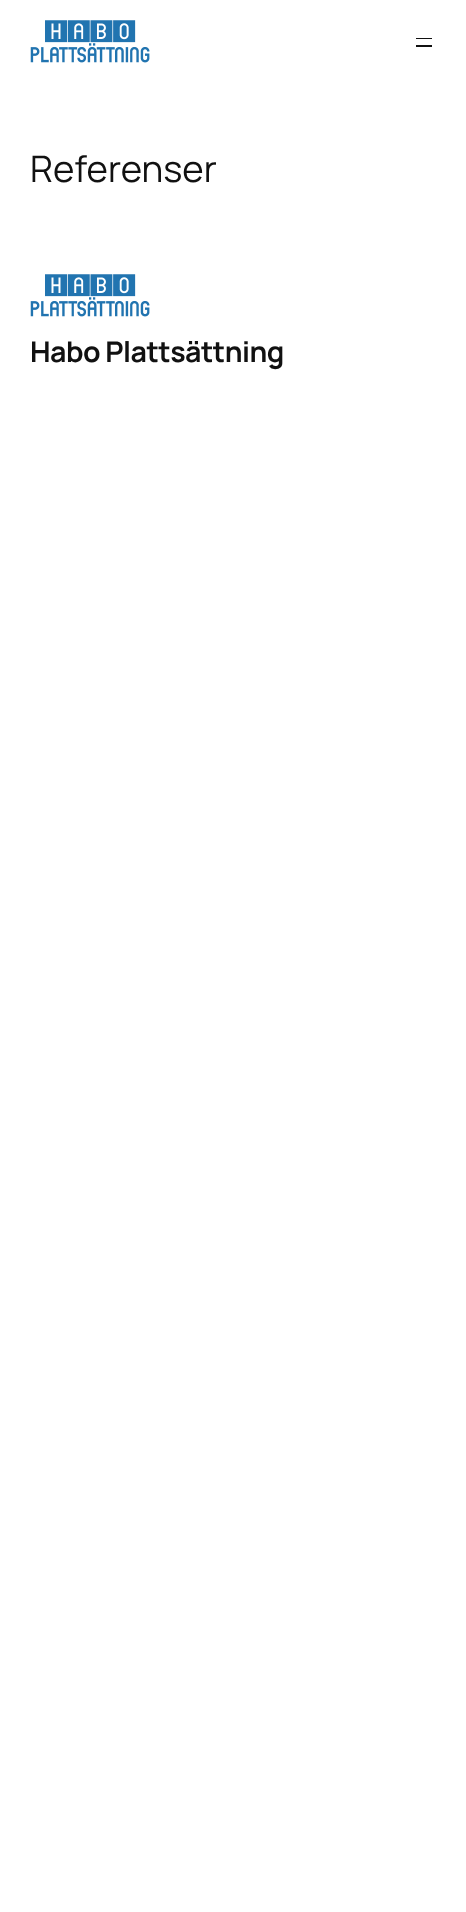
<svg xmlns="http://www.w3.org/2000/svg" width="466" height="1912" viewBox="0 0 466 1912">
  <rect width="100%" height="100%" fill="rgb(255,255,255)"/>
  <image x="30" y="20" width="120" height="43" href="pic1.png"/>
  <rect x="416" y="38" width="16" height="1" fill="rgb(17,17,17)"/>
  <rect x="416" y="45" width="16" height="2" fill="rgb(17,17,17)"/>
  <text x="30" y="182" font-family="Manrope" font-size="36.5" fill="rgb(17,17,17)">Referenser</text>
  <image x="30" y="274" width="120" height="43" href="pic1.png"/>
  <text x="30" y="362" font-family="Manrope" font-size="28.5" font-weight="bold" letter-spacing="-0.5" fill="rgb(17,17,17)">Habo Plattsättning</text>
</svg>
